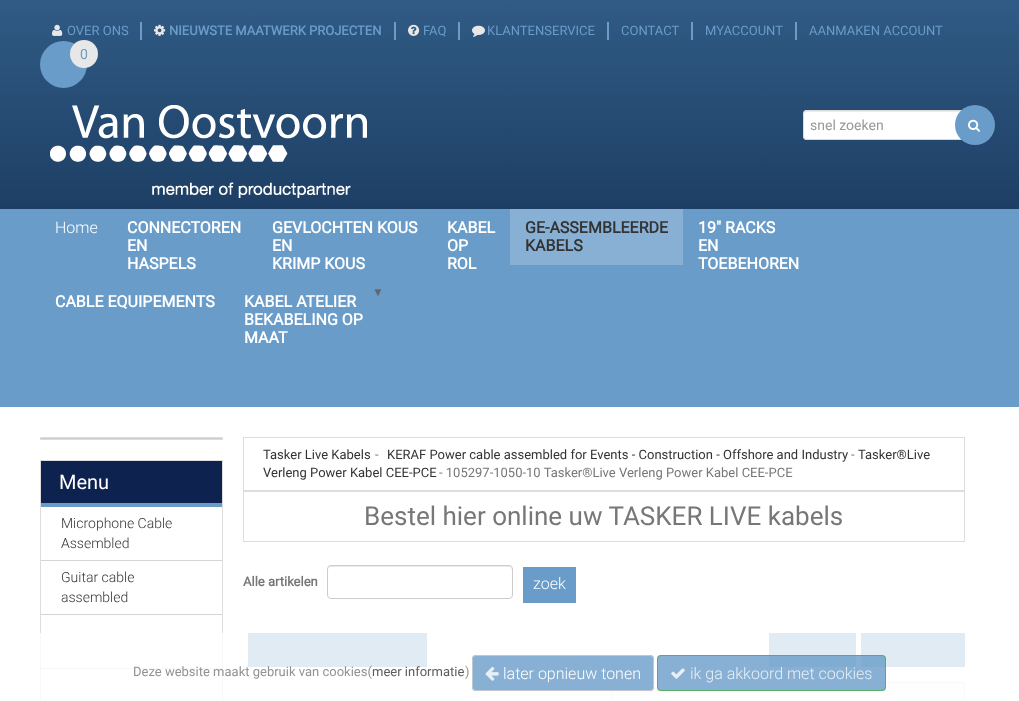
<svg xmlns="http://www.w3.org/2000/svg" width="1019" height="701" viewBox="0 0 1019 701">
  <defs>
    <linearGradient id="g1" gradientUnits="userSpaceOnUse" x1="510" y1="0" x2="510" y2="407"><stop offset="0" stop-color="rgb(48,91,133)"/><stop offset="1" stop-color="rgb(12,36,70)"/></linearGradient>
  </defs>
  <rect width="100%" height="100%" fill="rgb(255,255,255)"/>
  <rect x="0" y="0" width="1019" height="209" fill="url(#g1)"/>
  <rect x="140" y="22" width="2" height="18" fill="rgb(105,156,201)"/>
  <image x="52" y="24" width="11" height="12" href="pic1.png"/>
  <text x="67" y="35" font-family="Roboto" font-size="13" fill="rgb(105,156,201)">OVER ONS</text>
  <rect x="394" y="22" width="2" height="18" fill="rgb(105,156,201)"/>
  <image x="154" y="24" width="12" height="12" href="pic2.png"/>
  <text x="169" y="35" font-family="Roboto" font-size="13" font-weight="bold" fill="rgb(105,156,201)">NIEUWSTE MAATWERK PROJECTEN</text>
  <rect x="458" y="22" width="2" height="18" fill="rgb(105,156,201)"/>
  <image x="408" y="24" width="12" height="12" href="pic3.png"/>
  <text x="423" y="35" font-family="Roboto" font-size="13" fill="rgb(105,156,201)">FAQ</text>
  <rect x="607" y="22" width="2" height="18" fill="rgb(105,156,201)"/>
  <image x="472" y="25" width="13" height="12" href="pic4.png"/>
  <text x="487" y="35" font-family="Roboto" font-size="13" fill="rgb(105,156,201)">KLANTENSERVICE</text>
  <rect x="691" y="22" width="2" height="18" fill="rgb(105,156,201)"/>
  <text x="621" y="35" font-family="Roboto" font-size="13" fill="rgb(105,156,201)">CONTACT</text>
  <rect x="795" y="22" width="2" height="18" fill="rgb(105,156,201)"/>
  <g font-family="Roboto" font-size="13" fill="rgb(105,156,201)">
    <text x="705" y="35">MYACCOUNT</text>
    <text x="809" y="35">AANMAKEN ACCOUNT</text>
  </g>
  <circle cx="63.5" cy="64.5" r="23.5" fill="rgb(105,156,201)"/>
  <circle cx="84" cy="54" r="14" fill="rgb(232,231,231)"/>
  <text x="80" y="59" font-family="Roboto" font-size="14" fill="rgb(105,156,201)">0</text>
  <image x="50" y="105" width="317" height="93" href="pic5.png"/>
  <rect x="803" y="110" width="185" height="30" rx="4" fill="rgb(255,255,255)"/>
  <path d="M807 112H985L986 113L987 115C987 113 986 111 984 111H806C804 112 804 113 804 115C804 113 805 112 807 112Z" fill="rgb(236,236,236)"/>
  <rect x="803.5" y="110.5" width="184" height="29" rx="3.5" fill="none" stroke="rgb(217,217,217)"/>
  <text x="810" y="130" font-family="Roboto" font-size="14" fill="rgb(153,153,153)">snel zoeken</text>
  <circle cx="975" cy="125" r="20" fill="rgb(105,156,201)"/>
  <image x="968" y="119" width="12" height="13" href="pic6.png"/>
  <rect x="0" y="209" width="1019" height="198" fill="rgb(105,156,201)"/>
  <text x="55" y="233" font-family="Roboto" font-size="16" font-weight="300" fill="rgb(255,255,255)">Home</text>
  <g font-family="Roboto" font-size="16" font-weight="bold" fill="rgb(255,255,255)">
    <text>
      <tspan x="127" y="233">CONNECTOREN</tspan>
      <tspan x="127" y="251">EN</tspan>
      <tspan x="127" y="269">HASPELS</tspan>
    </text>
    <text>
      <tspan x="272" y="233">GEVLOCHTEN KOUS</tspan>
      <tspan x="272" y="251">EN</tspan>
      <tspan x="272" y="269">KRIMP KOUS</tspan>
    </text>
    <text>
      <tspan x="447" y="233">KABEL</tspan>
      <tspan x="447" y="251">OP</tspan>
      <tspan x="447" y="269">ROL</tspan>
    </text>
  </g>
  <rect x="510" y="209" width="173" height="56" fill="rgb(135,176,212)"/>
  <g font-family="Roboto" font-size="16" font-weight="bold" fill="rgb(51,51,51)">
    <text>
      <tspan x="525" y="233">GE-ASSEMBLEERDE</tspan>
      <tspan x="525" y="251">KABELS</tspan>
    </text>
  </g>
  <g font-family="Roboto" font-size="16" font-weight="bold" fill="rgb(255,255,255)">
    <text>
      <tspan x="698" y="233">19" RACKS</tspan>
      <tspan x="698" y="251">EN</tspan>
      <tspan x="698" y="269">TOEBEHOREN</tspan>
    </text>
    <text x="55" y="307">CABLE EQUIPEMENTS</text>
  </g>
  <text x="372" y="296" font-family="Liberation Sans" font-size="12" font-style="italic" fill="rgb(102,102,102)">▼</text>
  <g font-family="Roboto" font-size="16" font-weight="bold" fill="rgb(255,255,255)">
    <text>
      <tspan x="244" y="307">KABEL ATELIER</tspan>
      <tspan x="244" y="325">BEKABELING OP</tspan>
      <tspan x="244" y="343">MAAT</tspan>
    </text>
  </g>
  <rect x="40.5" y="437.5" width="182" height="2" fill="none" stroke="rgb(221,221,221)"/>
  <rect x="41" y="438" width="181" height="1" fill="rgb(204,204,204)"/>
  <rect x="40.5" y="460.5" width="182" height="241" fill="none" stroke="rgb(221,221,221)"/>
  <rect x="41" y="461" width="181" height="42" fill="rgb(13,34,79)"/>
  <rect x="41" y="503" width="181" height="4" fill="rgb(105,156,201)"/>
  <text x="59" y="489" font-family="Roboto" font-size="20" fill="rgb(255,255,255)">Menu</text>
  <rect x="41" y="560" width="181" height="1" fill="rgb(214,213,213)"/>
  <g font-family="Roboto" font-size="14" font-weight="300" fill="rgb(51,51,51)">
    <text>
      <tspan x="61" y="528">Microphone Cable</tspan>
      <tspan x="61" y="548">Assembled</tspan>
    </text>
  </g>
  <rect x="41" y="614" width="181" height="1" fill="rgb(214,213,213)"/>
  <g font-family="Roboto" font-size="14" font-weight="300" fill="rgb(51,51,51)">
    <text>
      <tspan x="61" y="582">Guitar cable</tspan>
      <tspan x="61" y="602">assembled</tspan>
    </text>
  </g>
  <rect x="41" y="668" width="181" height="1" fill="rgb(214,213,213)"/>
  <rect x="243.5" y="437.5" width="721" height="53" fill="none" stroke="rgb(221,221,221)"/>
  <text x="263" y="459" font-family="Roboto" font-size="13" fill="rgb(51,51,51)">Tasker Live Kabels</text>
  <text x="375" y="459" font-family="Roboto" font-size="13" fill="rgb(119,119,119)">-</text>
  <text x="387" y="459" font-family="Roboto" font-size="13" fill="rgb(51,51,51)">KERAF Power cable assembled for Events - Construction - Offshore and Industry</text>
  <text x="851" y="459" font-family="Roboto" font-size="13" fill="rgb(119,119,119)">-</text>
  <g font-family="Roboto" font-size="13" fill="rgb(51,51,51)">
    <text x="858" y="459">Tasker®Live</text>
    <text x="263" y="477">Verleng Power Kabel CEE-PCE</text>
  </g>
  <text x="439" y="477" font-family="Roboto" font-size="13" fill="rgb(119,119,119)">- 105297-1050-10 Tasker®Live Verleng Power Kabel CEE-PCE</text>
  <rect x="243.5" y="491.5" width="721" height="50" fill="none" stroke="rgb(221,221,221)"/>
  <text x="364" y="525" font-family="Roboto" font-size="26" fill="rgb(119,119,119)">Bestel hier online uw TASKER LIVE kabels</text>
  <text x="243" y="586" font-family="Roboto" font-size="13" font-weight="bold" fill="rgb(119,119,119)">Alle artikelen</text>
  <path d="M331 567H510L511 568L512 570C512 568 511 566 509 566H330C328 567 328 568 328 570C328 568 329 567 331 567Z" fill="rgb(236,236,236)"/>
  <rect x="327.5" y="565.5" width="185" height="33" rx="3.5" fill="none" stroke="rgb(204,204,204)"/>
  <rect x="523" y="567" width="53" height="36" fill="rgb(105,156,201)"/>
  <text x="533" y="589" font-family="Roboto" font-size="16" font-weight="300" fill="rgb(255,255,255)">zoek</text>
  <rect x="248" y="633" width="179" height="34" fill="rgb(105,156,201)"/>
  <rect x="769" y="633" width="87" height="34" fill="rgb(105,156,201)"/>
  <rect x="861" y="633" width="104" height="34" fill="rgb(105,156,201)"/>
  <rect x="611.5" y="682.5" width="353" height="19" fill="none" stroke="rgb(219,219,219)"/>
  <rect x="612" y="683" width="352" height="18" fill="rgb(247,247,247)"/>
  <rect x="40" y="633" width="925" height="68" fill="rgba(255,255,255,0.8)"/>
  <text x="133" y="676" font-family="Roboto" font-size="13" fill="rgb(146,146,146)">Deze website maakt gebruik van cookies(</text>
  <text x="372" y="676" font-family="Roboto" font-size="13" fill="rgb(92,92,92)">meer informatie</text>
  <text x="465" y="676" font-family="Roboto" font-size="13" fill="rgb(146,146,146)">)</text>
  <rect x="472" y="655" width="182" height="36" rx="4" fill="rgba(105,156,201,0.8)"/>
  <rect x="472.5" y="655.5" width="181" height="35" rx="3.5" fill="none" stroke="rgba(204,204,204,0.8)"/>
  <image x="485" y="666" width="14" height="15" href="pic7.png"/>
  <text x="503" y="679" font-family="Roboto" font-size="16" font-weight="300" fill="rgb(255,255,255)">later opnieuw tonen</text>
  <rect x="657" y="655" width="229" height="36" rx="4" fill="rgba(105,156,201,0.8)"/>
  <rect x="657.5" y="655.5" width="228" height="35" rx="3.5" fill="none" stroke="rgba(76,174,76,0.8)"/>
  <image x="671" y="668" width="14" height="11" href="pic8.png"/>
  <text x="690" y="679" font-family="Roboto" font-size="16" font-weight="300" fill="rgb(231,239,246)">ik ga akkoord met cookies</text>
</svg>
